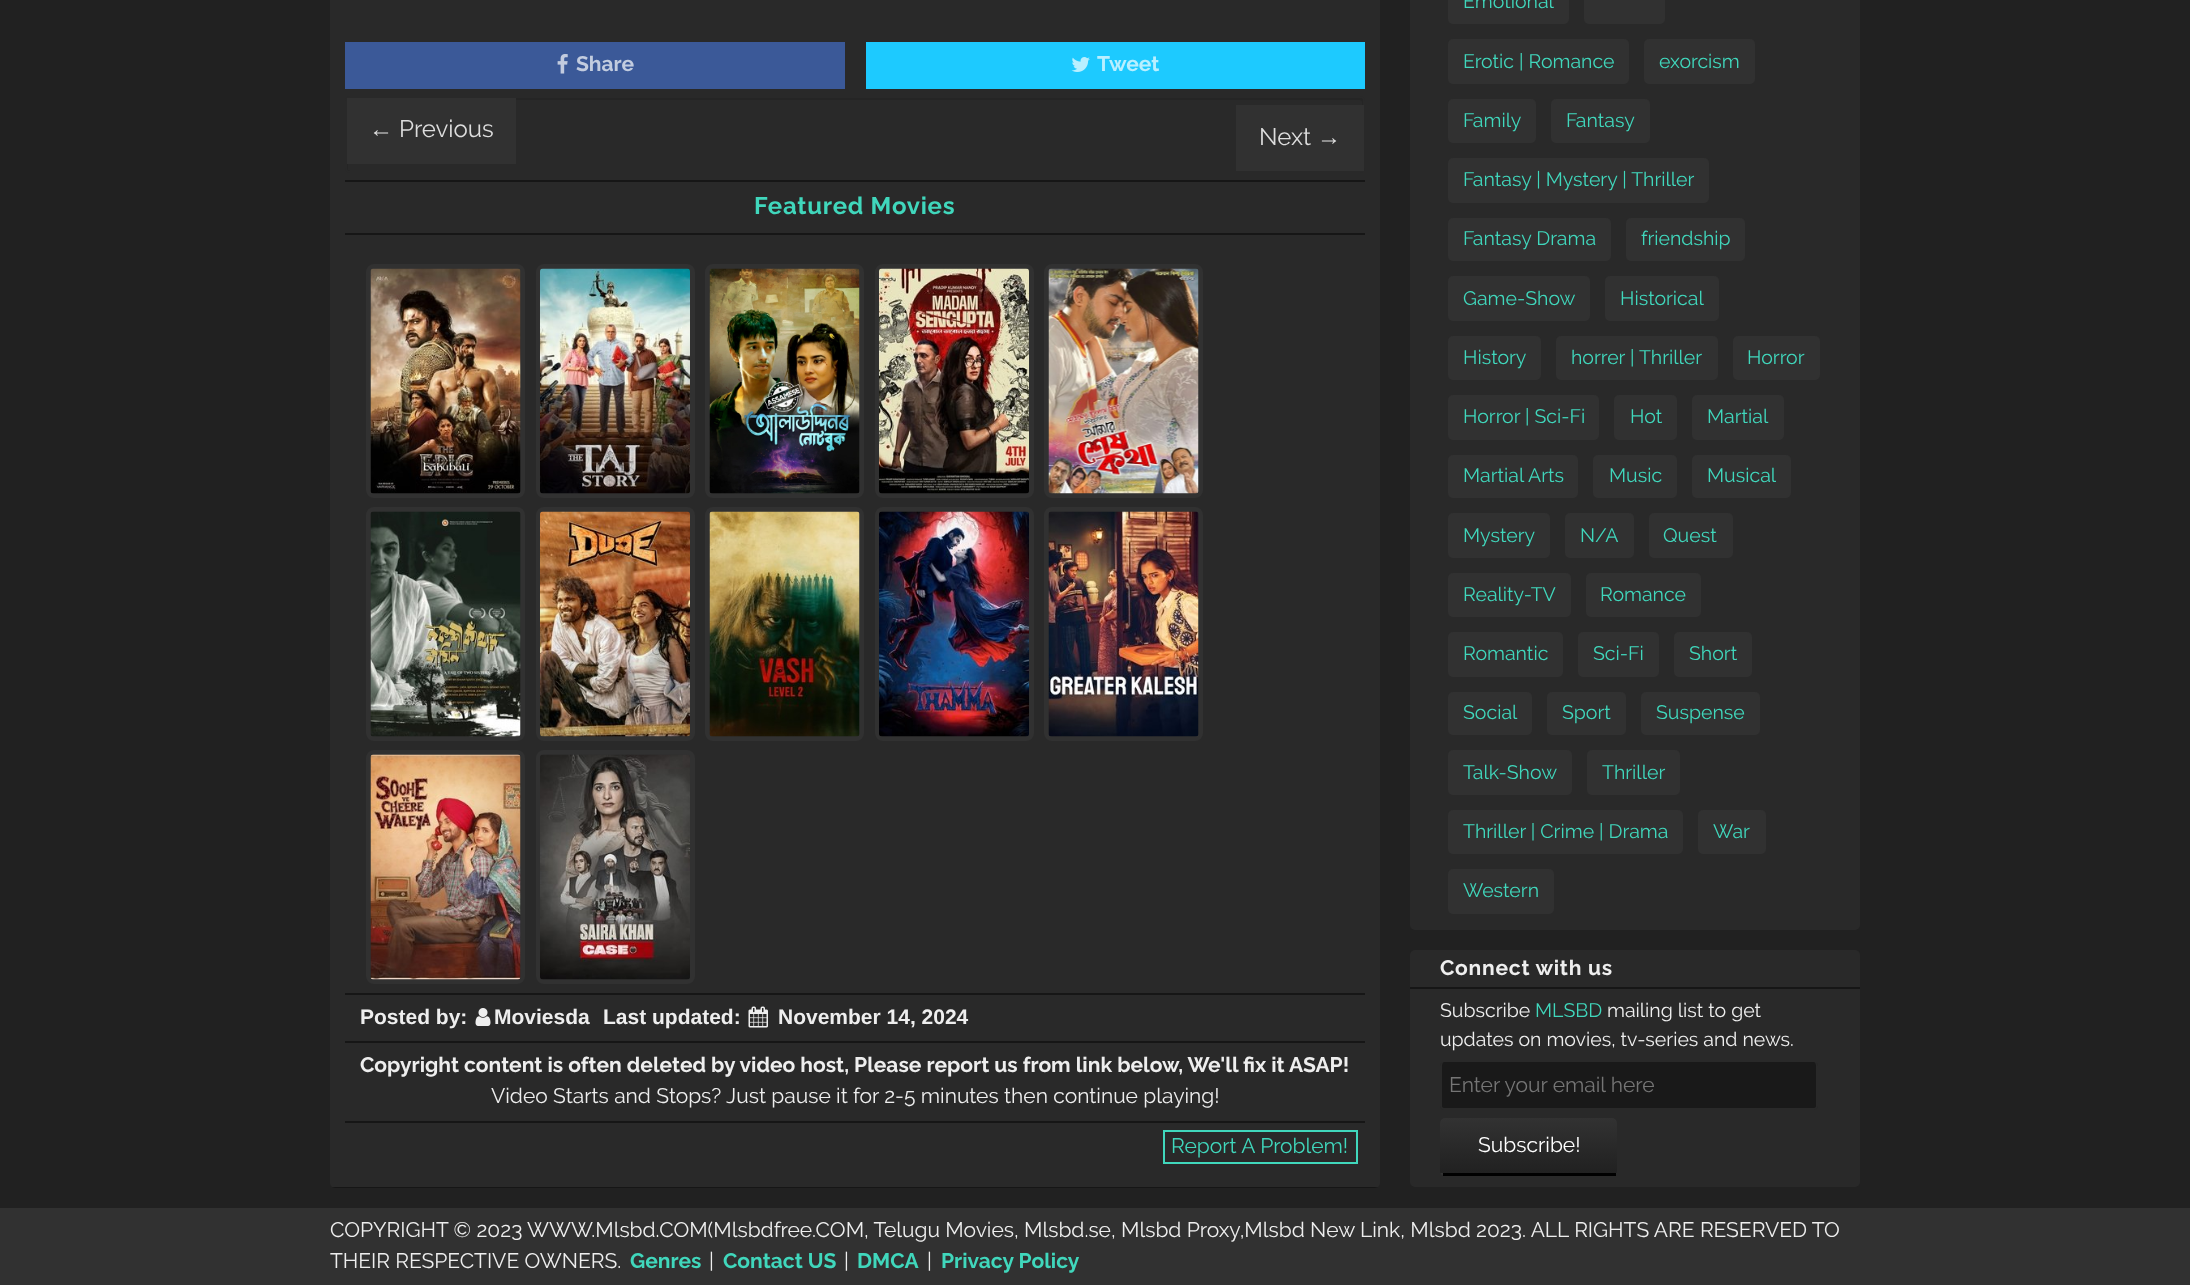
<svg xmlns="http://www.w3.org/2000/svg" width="2190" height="1285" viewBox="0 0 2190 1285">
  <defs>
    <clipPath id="clip1"><rect x="330" y="-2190" width="1050" height="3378" rx="5"/></clipPath>
    <clipPath id="clip2"><rect x="1440" y="1118" width="177" height="58" rx="5"/></clipPath>
    <linearGradient id="g1" gradientUnits="userSpaceOnUse" x1="1529" y1="1118" x2="1529" y2="1173"><stop offset="0" stop-color="rgb(50,50,50)"/><stop offset="1" stop-color="rgb(33,33,33)"/></linearGradient>
    <linearGradient id="g2" gradientUnits="userSpaceOnUse" x1="1529" y1="1173" x2="1529" y2="1229"><stop offset="0" stop-color="rgb(50,50,50)"/><stop offset="1" stop-color="rgb(33,33,33)"/></linearGradient>
  </defs>
  <rect width="100%" height="100%" fill="rgb(33,33,33)"/>
  <rect x="330" y="-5" width="1050" height="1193" rx="5" fill="rgb(41,41,41)"/>
  <g clip-path="url(#clip1)">
    <rect x="330" y="1187" width="1050" height="1" fill="rgb(22,22,22)"/>
  </g>
  <rect x="345" y="42" width="500" height="47" fill="rgb(59,89,152)"/>
  <image x="557" y="54" width="11" height="20" href="pic1.png"/>
  <text x="576" y="71" font-family="Raleway" font-size="21" font-weight="bold" fill="rgb(194,204,223)">Share</text>
  <rect x="866" y="42" width="499" height="47" fill="rgb(29,202,255)"/>
  <image x="1071" y="57" width="19" height="15" href="pic2.png"/>
  <text x="1097" y="71" font-family="Raleway" font-size="21" font-weight="bold" fill="rgb(185,239,255)">Tweet</text>
  <path d="M350 100H1360C1361 100 1362 101 1362 102V170L1360 171H1361C1363 171 1364 170 1364 168V101C1364 99 1363 98 1361 98H350C348 98 347 99 347 101V168C347 170 348 171 350 171L348 170V102C348 101 349 100 350 100Z" fill="rgb(37,37,37)"/>
  <rect x="346" y="97" width="1018" height="75" rx="4" fill="none" stroke="rgb(41,41,41)" stroke-width="2"/>
  <rect x="347" y="98" width="169" height="66" fill="rgb(49,49,49)"/>
  <text x="369" y="137" font-family="Liberation Sans" font-size="24" fill="rgb(221,221,221)">←</text>
  <text x="399" y="137" font-family="Raleway" font-size="24" fill="rgb(221,221,221)">Previous</text>
  <rect x="1236" y="105" width="128" height="66" fill="rgb(49,49,49)"/>
  <text x="1259" y="145" font-family="Raleway" font-size="24" fill="rgb(221,221,221)">Next</text>
  <text x="1317" y="145" font-family="Liberation Sans" font-size="24" fill="rgb(221,221,221)">→</text>
  <rect x="345" y="180" width="1020" height="2" fill="rgb(22,22,22)"/>
  <rect x="345" y="233" width="1020" height="2" fill="rgb(22,22,22)"/>
  <text x="754" y="214" font-family="Raleway" font-size="24" font-weight="bold" letter-spacing="0.75" fill="rgb(64,215,188)">Featured Movies</text>
  <rect x="368.5" y="266.5" width="154" height="229" rx="5.5" fill="none" stroke="rgb(49,49,49)" stroke-width="5"/>
  <image x="370" y="268" width="151" height="226" href="pic3.png"/>
  <rect x="538.5" y="266.5" width="154" height="229" rx="5.5" fill="none" stroke="rgb(49,49,49)" stroke-width="5"/>
  <image x="540" y="268" width="150" height="226" href="pic4.png"/>
  <rect x="707.5" y="266.5" width="154" height="229" rx="5.5" fill="none" stroke="rgb(49,49,49)" stroke-width="5"/>
  <image x="709" y="268" width="151" height="226" href="pic5.png"/>
  <rect x="877.5" y="266.5" width="154" height="229" rx="5.5" fill="none" stroke="rgb(49,49,49)" stroke-width="5"/>
  <image x="879" y="268" width="150" height="226" href="pic6.png"/>
  <rect x="1046.5" y="266.5" width="154" height="229" rx="5.5" fill="none" stroke="rgb(49,49,49)" stroke-width="5"/>
  <image x="1048" y="268" width="151" height="226" href="pic7.png"/>
  <rect x="368.5" y="509.5" width="154" height="229" rx="5.5" fill="none" stroke="rgb(49,49,49)" stroke-width="5"/>
  <image x="370" y="511" width="151" height="226" href="pic8.png"/>
  <rect x="538.5" y="509.5" width="154" height="229" rx="5.5" fill="none" stroke="rgb(49,49,49)" stroke-width="5"/>
  <image x="540" y="511" width="150" height="226" href="pic9.png"/>
  <rect x="707.5" y="509.5" width="154" height="229" rx="5.5" fill="none" stroke="rgb(49,49,49)" stroke-width="5"/>
  <image x="709" y="511" width="151" height="226" href="pic10.png"/>
  <rect x="877.5" y="509.5" width="154" height="229" rx="5.5" fill="none" stroke="rgb(49,49,49)" stroke-width="5"/>
  <image x="879" y="511" width="150" height="226" href="pic11.png"/>
  <rect x="1046.5" y="509.5" width="154" height="229" rx="5.5" fill="none" stroke="rgb(49,49,49)" stroke-width="5"/>
  <image x="1048" y="511" width="151" height="226" href="pic12.png"/>
  <rect x="368.5" y="752.5" width="154" height="229" rx="5.5" fill="none" stroke="rgb(49,49,49)" stroke-width="5"/>
  <image x="370" y="754" width="151" height="226" href="pic13.png"/>
  <rect x="538.5" y="752.5" width="154" height="229" rx="5.5" fill="none" stroke="rgb(49,49,49)" stroke-width="5"/>
  <image x="540" y="754" width="150" height="226" href="pic14.png"/>
  <rect x="345" y="993" width="1020" height="2" fill="rgb(22,22,22)"/>
  <text x="360" y="1024" font-family="Liberation Sans" font-size="21" font-weight="bold" fill="rgb(238,238,238)">Posted by:</text>
  <image x="475" y="1008" width="16" height="18" href="pic15.png"/>
  <g font-family="Liberation Sans" font-size="21" font-weight="bold" fill="rgb(238,238,238)">
    <text x="494" y="1024">Moviesda</text>
    <text x="603" y="1024">Last updated:</text>
  </g>
  <image x="748" y="1006" width="20" height="22" href="pic16.png"/>
  <text x="778" y="1024" font-family="Liberation Sans" font-size="21" font-weight="bold" fill="rgb(238,238,238)">November 14, 2024</text>
  <rect x="345" y="1041" width="1020" height="2" fill="rgb(22,22,22)"/>
  <text x="360" y="1072" font-family="Raleway" font-size="21" font-weight="bold" fill="rgb(238,238,238)">Copyright content is often deleted by video host, Please report us from link below, We'll fix it ASAP!</text>
  <text x="491" y="1103" font-family="Raleway" font-size="21" fill="rgb(238,238,238)">Video Starts and Stops? Just pause it for 2-5 minutes then continue playing!</text>
  <rect x="345" y="1121" width="1020" height="2" fill="rgb(22,22,22)"/>
  <rect x="1164" y="1131" width="193" height="32" fill="none" stroke="rgb(64,215,188)" stroke-width="2"/>
  <text x="1171" y="1153" font-family="Raleway" font-size="21" fill="rgb(64,215,188)">Report A Problem!</text>
  <rect x="1410" y="-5" width="450" height="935" rx="5" fill="rgb(41,41,41)"/>
  <rect x="1448" y="-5" width="121" height="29" rx="5" fill="rgb(49,49,49)"/>
  <text x="1463" y="8" font-family="Raleway" font-size="19.5" fill="rgb(64,215,188)">Emotional</text>
  <rect x="1584" y="-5" width="81" height="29" rx="5" fill="rgb(49,49,49)"/>
  <rect x="1448" y="39" width="181" height="45" rx="5" fill="rgb(49,49,49)"/>
  <text x="1463" y="68" font-family="Raleway" font-size="19.5" fill="rgb(64,215,188)">Erotic | Romance</text>
  <rect x="1644" y="39" width="111" height="45" rx="5" fill="rgb(49,49,49)"/>
  <text x="1659" y="68" font-family="Raleway" font-size="19.5" fill="rgb(64,215,188)">exorcism</text>
  <rect x="1448" y="99" width="88" height="44" rx="5" fill="rgb(49,49,49)"/>
  <text x="1463" y="127" font-family="Raleway" font-size="19.5" fill="rgb(64,215,188)">Family</text>
  <rect x="1551" y="99" width="99" height="44" rx="5" fill="rgb(49,49,49)"/>
  <text x="1566" y="127" font-family="Raleway" font-size="19.5" fill="rgb(64,215,188)">Fantasy</text>
  <rect x="1448" y="158" width="261" height="45" rx="5" fill="rgb(49,49,49)"/>
  <text x="1463" y="186" font-family="Raleway" font-size="19.5" fill="rgb(64,215,188)">Fantasy | Mystery | Thriller</text>
  <rect x="1448" y="218" width="163" height="43" rx="5" fill="rgb(49,49,49)"/>
  <text x="1463" y="245" font-family="Raleway" font-size="19.5" fill="rgb(64,215,188)">Fantasy Drama</text>
  <rect x="1626" y="218" width="119" height="43" rx="5" fill="rgb(49,49,49)"/>
  <text x="1641" y="245" font-family="Raleway" font-size="19.5" fill="rgb(64,215,188)">friendship</text>
  <rect x="1448" y="276" width="142" height="45" rx="5" fill="rgb(49,49,49)"/>
  <text x="1463" y="305" font-family="Raleway" font-size="19.5" fill="rgb(64,215,188)">Game-Show</text>
  <rect x="1605" y="276" width="114" height="45" rx="5" fill="rgb(49,49,49)"/>
  <text x="1620" y="305" font-family="Raleway" font-size="19.5" fill="rgb(64,215,188)">Historical</text>
  <rect x="1448" y="336" width="93" height="44" rx="5" fill="rgb(49,49,49)"/>
  <text x="1463" y="364" font-family="Raleway" font-size="19.5" fill="rgb(64,215,188)">History</text>
  <rect x="1556" y="336" width="162" height="44" rx="5" fill="rgb(49,49,49)"/>
  <text x="1571" y="364" font-family="Raleway" font-size="19.5" fill="rgb(64,215,188)">horrer | Thriller</text>
  <rect x="1733" y="336" width="87" height="44" rx="5" fill="rgb(49,49,49)"/>
  <text x="1747" y="364" font-family="Raleway" font-size="19.5" fill="rgb(64,215,188)">Horror</text>
  <rect x="1448" y="395" width="151" height="45" rx="5" fill="rgb(49,49,49)"/>
  <text x="1463" y="423" font-family="Raleway" font-size="19.5" fill="rgb(64,215,188)">Horror | Sci-Fi</text>
  <rect x="1614" y="395" width="63" height="45" rx="5" fill="rgb(49,49,49)"/>
  <text x="1630" y="423" font-family="Raleway" font-size="19.5" fill="rgb(64,215,188)">Hot</text>
  <rect x="1692" y="395" width="92" height="45" rx="5" fill="rgb(49,49,49)"/>
  <text x="1707" y="423" font-family="Raleway" font-size="19.5" fill="rgb(64,215,188)">Martial</text>
  <rect x="1448" y="455" width="130" height="43" rx="5" fill="rgb(49,49,49)"/>
  <text x="1463" y="482" font-family="Raleway" font-size="19.5" fill="rgb(64,215,188)">Martial Arts</text>
  <rect x="1593" y="455" width="84" height="43" rx="5" fill="rgb(49,49,49)"/>
  <text x="1609" y="482" font-family="Raleway" font-size="19.5" fill="rgb(64,215,188)">Music</text>
  <rect x="1692" y="455" width="99" height="43" rx="5" fill="rgb(49,49,49)"/>
  <text x="1707" y="482" font-family="Raleway" font-size="19.5" fill="rgb(64,215,188)">Musical</text>
  <rect x="1448" y="513" width="102" height="45" rx="5" fill="rgb(49,49,49)"/>
  <text x="1463" y="542" font-family="Raleway" font-size="19.5" fill="rgb(64,215,188)">Mystery</text>
  <rect x="1565" y="513" width="69" height="45" rx="5" fill="rgb(49,49,49)"/>
  <text x="1580" y="542" font-family="Raleway" font-size="19.5" fill="rgb(64,215,188)">N/A</text>
  <rect x="1649" y="513" width="84" height="45" rx="5" fill="rgb(49,49,49)"/>
  <text x="1663" y="542" font-family="Raleway" font-size="19.5" fill="rgb(64,215,188)">Quest</text>
  <rect x="1448" y="573" width="123" height="44" rx="5" fill="rgb(49,49,49)"/>
  <text x="1463" y="601" font-family="Raleway" font-size="19.5" fill="rgb(64,215,188)">Reality-TV</text>
  <rect x="1586" y="573" width="115" height="44" rx="5" fill="rgb(49,49,49)"/>
  <text x="1600" y="601" font-family="Raleway" font-size="19.5" fill="rgb(64,215,188)">Romance</text>
  <rect x="1448" y="632" width="115" height="45" rx="5" fill="rgb(49,49,49)"/>
  <text x="1463" y="660" font-family="Raleway" font-size="19.5" fill="rgb(64,215,188)">Romantic</text>
  <rect x="1578" y="632" width="81" height="45" rx="5" fill="rgb(49,49,49)"/>
  <text x="1593" y="660" font-family="Raleway" font-size="19.5" fill="rgb(64,215,188)">Sci-Fi</text>
  <rect x="1674" y="632" width="78" height="45" rx="5" fill="rgb(49,49,49)"/>
  <text x="1689" y="660" font-family="Raleway" font-size="19.5" fill="rgb(64,215,188)">Short</text>
  <rect x="1448" y="692" width="84" height="43" rx="5" fill="rgb(49,49,49)"/>
  <text x="1463" y="719" font-family="Raleway" font-size="19.5" fill="rgb(64,215,188)">Social</text>
  <rect x="1547" y="692" width="79" height="43" rx="5" fill="rgb(49,49,49)"/>
  <text x="1562" y="719" font-family="Raleway" font-size="19.5" fill="rgb(64,215,188)">Sport</text>
  <rect x="1641" y="692" width="119" height="43" rx="5" fill="rgb(49,49,49)"/>
  <text x="1656" y="719" font-family="Raleway" font-size="19.5" fill="rgb(64,215,188)">Suspense</text>
  <rect x="1448" y="750" width="124" height="45" rx="5" fill="rgb(49,49,49)"/>
  <text x="1463" y="779" font-family="Raleway" font-size="19.5" fill="rgb(64,215,188)">Talk-Show</text>
  <rect x="1587" y="750" width="93" height="45" rx="5" fill="rgb(49,49,49)"/>
  <text x="1602" y="779" font-family="Raleway" font-size="19.5" fill="rgb(64,215,188)">Thriller</text>
  <rect x="1448" y="810" width="235" height="44" rx="5" fill="rgb(49,49,49)"/>
  <text x="1463" y="838" font-family="Raleway" font-size="19.5" fill="rgb(64,215,188)">Thriller | Crime | Drama</text>
  <rect x="1698" y="810" width="68" height="44" rx="5" fill="rgb(49,49,49)"/>
  <text x="1713" y="838" font-family="Raleway" font-size="19.5" fill="rgb(64,215,188)">War</text>
  <rect x="1448" y="869" width="106" height="45" rx="5" fill="rgb(49,49,49)"/>
  <text x="1463" y="897" font-family="Raleway" font-size="19.5" fill="rgb(64,215,188)">Western</text>
  <rect x="1410" y="950" width="450" height="237" rx="5" fill="rgb(41,41,41)"/>
  <rect x="1410" y="987" width="450" height="2" fill="rgb(22,22,22)"/>
  <text x="1440" y="975" font-family="Raleway" font-size="21" font-weight="bold" letter-spacing="0.75" fill="rgb(238,238,238)">Connect with us</text>
  <text x="1440" y="1017" font-family="Raleway" font-size="19.5" fill="rgb(238,238,238)">Subscribe</text>
  <text x="1535" y="1017" font-family="Raleway" font-size="19.5" fill="rgb(64,215,188)">MLSBD</text>
  <g font-family="Raleway" font-size="19.5" fill="rgb(238,238,238)">
    <text x="1607" y="1017">mailing list to get</text>
    <text x="1440" y="1046">updates on movies, tv-series and news.</text>
  </g>
  <rect x="1440" y="1062" width="378" height="48" rx="5" fill="rgb(25,25,25)"/>
  <path d="M1444 1062H1814C1816 1062 1818 1064 1818 1066V1106C1818 1108 1816 1110 1814 1110H1444C1442 1110 1440 1108 1440 1106V1066C1440 1064 1442 1062 1444 1062ZM1444 1062H1814C1815 1062 1816 1064 1816 1066V1106C1816 1107 1815 1108 1814 1108H1444C1443 1108 1442 1107 1442 1106V1066C1442 1064 1443 1062 1444 1062Z" fill="rgb(41,41,41)" fill-rule="evenodd"/>
  <text x="1449" y="1092" font-family="Raleway" font-size="21" fill="rgb(117,117,117)">Enter your email here</text>
  <g clip-path="url(#clip2)">
    <path d="M1445 1118H1612C1615 1118 1617 1120 1617 1123V1173H1440V1123C1440 1120 1442 1118 1445 1118Z" fill="url(#g1)"/>
    <rect x="1440" y="1173" width="177" height="3" fill="url(#g2)"/>
  </g>
  <rect x="1443" y="1173" width="173" height="3" fill="rgb(0,0,0)"/>
  <text x="1478" y="1152" font-family="Raleway" font-size="21" fill="rgb(255,255,255)">Subscribe!</text>
  <rect x="0" y="1208" width="2190" height="77" fill="rgb(49,49,49)"/>
  <g font-family="Raleway" font-size="21" fill="rgb(238,238,238)">
    <text>
      <tspan x="330" y="1237">COPYRIGHT © 2023 WWW.Mlsbd.COM(Mlsbdfree.COM, Telugu Movies, Mlsbd.se, Mlsbd Proxy,Mlsbd New Link, Mlsbd 2023. ALL RIGHTS ARE RESERVED TO</tspan>
      <tspan x="330" y="1268">THEIR RESPECTIVE OWNERS.</tspan>
    </text>
  </g>
  <text x="630" y="1268" font-family="Raleway" font-size="21" font-weight="bold" fill="rgb(64,215,188)">Genres</text>
  <text x="709" y="1268" font-family="Raleway" font-size="21" fill="rgb(238,238,238)">|</text>
  <text x="723" y="1268" font-family="Raleway" font-size="21" font-weight="bold" fill="rgb(64,215,188)">Contact US</text>
  <text x="844" y="1268" font-family="Raleway" font-size="21" fill="rgb(238,238,238)">|</text>
  <text x="857" y="1268" font-family="Raleway" font-size="21" font-weight="bold" fill="rgb(64,215,188)">DMCA</text>
  <text x="927" y="1268" font-family="Raleway" font-size="21" fill="rgb(238,238,238)">|</text>
  <text x="941" y="1268" font-family="Raleway" font-size="21" font-weight="bold" fill="rgb(64,215,188)">Privacy Policy</text>
</svg>
